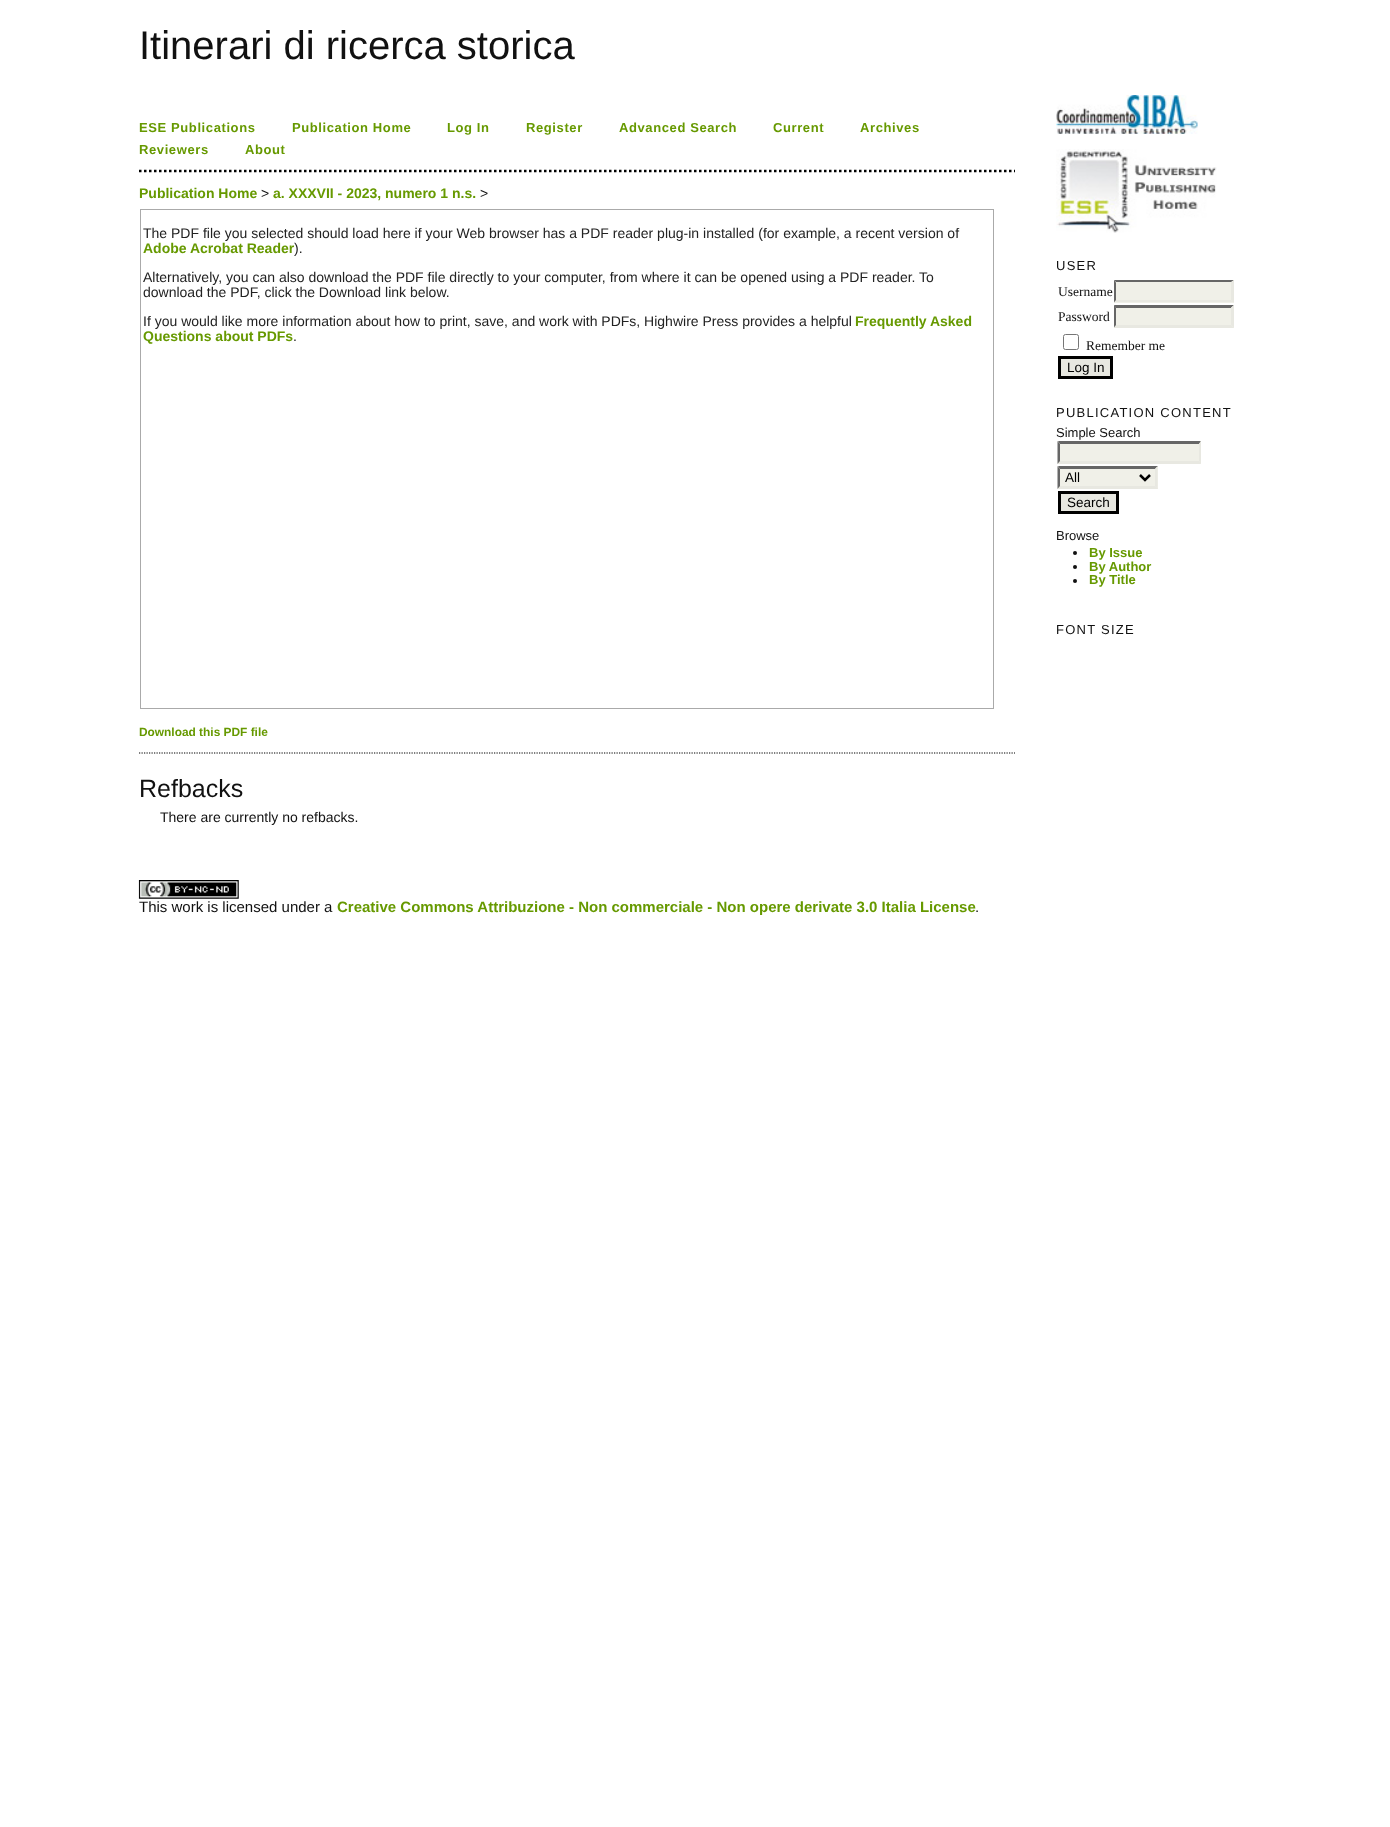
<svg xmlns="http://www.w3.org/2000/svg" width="1390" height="1827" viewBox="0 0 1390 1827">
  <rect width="100%" height="100%" fill="rgb(255,255,255)"/>
  <text x="139" y="59" font-family="Liberation Sans" font-size="40" fill="rgb(17,17,17)">Itinerari di ricerca storica</text>
  <path d="M139 171H1015" fill="none" stroke="rgb(0,0,0)" stroke-width="2.5" stroke-dasharray="2.5 2.5"/>
  <g font-family="Liberation Sans" font-size="13" font-weight="bold" letter-spacing="0.6" fill="rgb(102,153,0)">
    <text x="139" y="132">ESE Publications</text>
    <text x="292" y="132">Publication Home</text>
    <text x="447" y="132">Log In</text>
    <text x="526" y="132">Register</text>
    <text x="619" y="132">Advanced Search</text>
    <text x="773" y="132">Current</text>
    <text x="860" y="132">Archives</text>
    <text x="139" y="154">Reviewers</text>
    <text x="245" y="154">About</text>
  </g>
  <text x="139" y="198" font-family="Liberation Sans" font-size="14" font-weight="bold" fill="rgb(102,153,0)">Publication Home</text>
  <text x="261" y="198" font-family="Liberation Sans" font-size="14" fill="rgb(17,17,17)">&gt;</text>
  <text x="273" y="198" font-family="Liberation Sans" font-size="14" font-weight="bold" fill="rgb(102,153,0)">a. XXXVII - 2023, numero 1 n.s.</text>
  <text x="480" y="198" font-family="Liberation Sans" font-size="14" fill="rgb(17,17,17)">&gt;</text>
  <rect x="140.5" y="209.5" width="853" height="499" fill="none" stroke="rgb(170,170,170)"/>
  <text x="143" y="238" font-family="Liberation Sans" font-size="14" fill="rgb(34,34,34)">The PDF file you selected should load here if your Web browser has a PDF reader plug-in installed (for example, a recent version of</text>
  <text x="143" y="253" font-family="Liberation Sans" font-size="14" font-weight="bold" fill="rgb(102,153,0)">Adobe Acrobat Reader</text>
  <g font-family="Liberation Sans" font-size="14" fill="rgb(34,34,34)">
    <text x="294" y="253">).</text>
    <text>
      <tspan x="143" y="282">Alternatively, you can also download the PDF file directly to your computer, from where it can be opened using a PDF reader. To</tspan>
      <tspan x="143" y="297">download the PDF, click the Download link below.</tspan>
    </text>
    <text x="143" y="326">If you would like more information about how to print, save, and work with PDFs, Highwire Press provides a helpful</text>
  </g>
  <g font-family="Liberation Sans" font-size="14" font-weight="bold" fill="rgb(102,153,0)">
    <text x="855" y="326">Frequently Asked</text>
    <text x="143" y="341">Questions about PDFs</text>
  </g>
  <text x="293" y="341" font-family="Liberation Sans" font-size="14" fill="rgb(34,34,34)">.</text>
  <text x="139" y="736" font-family="Liberation Sans" font-size="11.9" font-weight="bold" fill="rgb(102,153,0)">Download this PDF file</text>
  <path d="M139 753H1015" fill="none" stroke="rgb(0,0,0)" stroke-width="1.2" stroke-dasharray="1.25 1.25"/>
  <text x="139" y="797" font-family="Liberation Sans" font-size="25" fill="rgb(17,17,17)">Refbacks</text>
  <text x="160" y="822" font-family="Liberation Sans" font-size="14" fill="rgb(17,17,17)">There are currently no refbacks.</text>
  <image x="138" y="880" width="101" height="19" href="pic1.png"/>
  <text x="139" y="912" font-family="Liberation Sans" font-size="15" fill="rgb(17,17,17)">This work is licensed under a</text>
  <text x="337" y="912" font-family="Liberation Sans" font-size="15" font-weight="bold" fill="rgb(102,153,0)">Creative Commons Attribuzione - Non commerciale - Non opere derivate 3.0 Italia License</text>
  <text x="975" y="912" font-family="Liberation Sans" font-size="15" fill="rgb(17,17,17)">.</text>
  <image x="1056" y="95" width="142" height="39" href="pic2.png"/>
  <image x="1056" y="149" width="161" height="84" href="pic3.png"/>
  <text x="1056" y="270" font-family="Liberation Sans" font-size="13" letter-spacing="1.25" fill="rgb(17,17,17)">USER</text>
  <text x="1058" y="296" font-family="Liberation Serif" font-size="13.5" fill="rgb(17,17,17)">Username</text>
  <rect x="1114" y="280" width="120" height="23" fill="rgb(240,240,232)"/>
  <path d="M1114 280H1234L1231 282H1116Z" fill="rgb(102,102,102)"/>
  <path d="M1234 280V302.5L1231 300V282.5Z" fill="rgb(232,232,225)"/>
  <path d="M1234 302H1114L1116 300H1231Z" fill="rgb(232,232,225)"/>
  <path d="M1114 302.5V280L1116 282.5V300Z" fill="rgb(102,102,102)"/>
  <text x="1058" y="321" font-family="Liberation Serif" font-size="13.5" fill="rgb(17,17,17)">Password</text>
  <rect x="1114" y="305" width="120" height="23" fill="rgb(240,240,232)"/>
  <path d="M1114 305H1234L1231 308H1116Z" fill="rgb(102,102,102)"/>
  <path d="M1234 305V327.5L1231 325V307.5Z" fill="rgb(232,232,225)"/>
  <path d="M1234 328H1114L1116 325H1231Z" fill="rgb(232,232,225)"/>
  <path d="M1114 327.5V305L1116 307.5V325Z" fill="rgb(102,102,102)"/>
  <rect x="1063.5" y="334.5" width="15" height="15" rx="2" fill="none" stroke="rgb(118,118,118)"/>
  <text x="1086" y="350" font-family="Liberation Serif" font-size="13.5" fill="rgb(17,17,17)">Remember me</text>
  <rect x="1059.5" y="357.5" width="52" height="20" fill="rgb(232,232,225)" stroke="rgb(0,0,0)" stroke-width="3"/>
  <text x="1067" y="372" font-family="Liberation Sans" font-size="13.5" fill="rgb(0,0,0)">Log In</text>
  <text x="1056" y="417" font-family="Liberation Sans" font-size="13" letter-spacing="1.25" fill="rgb(17,17,17)">PUBLICATION CONTENT</text>
  <text x="1056" y="437" font-family="Liberation Sans" font-size="13" fill="rgb(17,17,17)">Simple Search</text>
  <rect x="1058" y="441" width="143" height="23" fill="rgb(240,240,232)"/>
  <path d="M1058 441H1201L1199 444H1060Z" fill="rgb(102,102,102)"/>
  <path d="M1201 441V464L1199 461V444Z" fill="rgb(232,232,225)"/>
  <path d="M1201 464H1058L1060 461H1199Z" fill="rgb(232,232,225)"/>
  <path d="M1057.5 464V441L1060 444V461Z" fill="rgb(102,102,102)"/>
  <rect x="1058" y="466" width="100" height="23" fill="rgb(240,240,232)"/>
  <path d="M1058 466H1158L1155 469H1060Z" fill="rgb(102,102,102)"/>
  <path d="M1157.5 466V489L1155 486V469Z" fill="rgb(232,232,225)"/>
  <path d="M1158 489H1058L1060 486H1155Z" fill="rgb(232,232,225)"/>
  <path d="M1057.5 489V466L1060 469V486Z" fill="rgb(102,102,102)"/>
  <path d="M1140 475L1145 480L1150 475" fill="none" stroke="rgb(0,0,0)" stroke-width="2.5"/>
  <text x="1065" y="482" font-family="Liberation Sans" font-size="13.5" fill="rgb(0,0,0)">All</text>
  <rect x="1059.5" y="492.5" width="58" height="20" fill="rgb(232,232,225)" stroke="rgb(0,0,0)" stroke-width="3"/>
  <text x="1067" y="507" font-family="Liberation Sans" font-size="13.5" fill="rgb(0,0,0)">Search</text>
  <text x="1056" y="540" font-family="Liberation Sans" font-size="13" fill="rgb(17,17,17)">Browse</text>
  <circle cx="1075" cy="553" r="2" fill="rgb(17,17,17)"/>
  <text x="1089" y="557" font-family="Liberation Sans" font-size="13" font-weight="bold" fill="rgb(102,153,0)">By Issue</text>
  <circle cx="1075" cy="567" r="2" fill="rgb(17,17,17)"/>
  <text x="1089" y="571" font-family="Liberation Sans" font-size="13" font-weight="bold" fill="rgb(102,153,0)">By Author</text>
  <circle cx="1075" cy="581" r="2" fill="rgb(17,17,17)"/>
  <text x="1089" y="584" font-family="Liberation Sans" font-size="13" font-weight="bold" fill="rgb(102,153,0)">By Title</text>
  <text x="1056" y="634" font-family="Liberation Sans" font-size="13" letter-spacing="1.25" fill="rgb(17,17,17)">FONT SIZE</text>
</svg>
